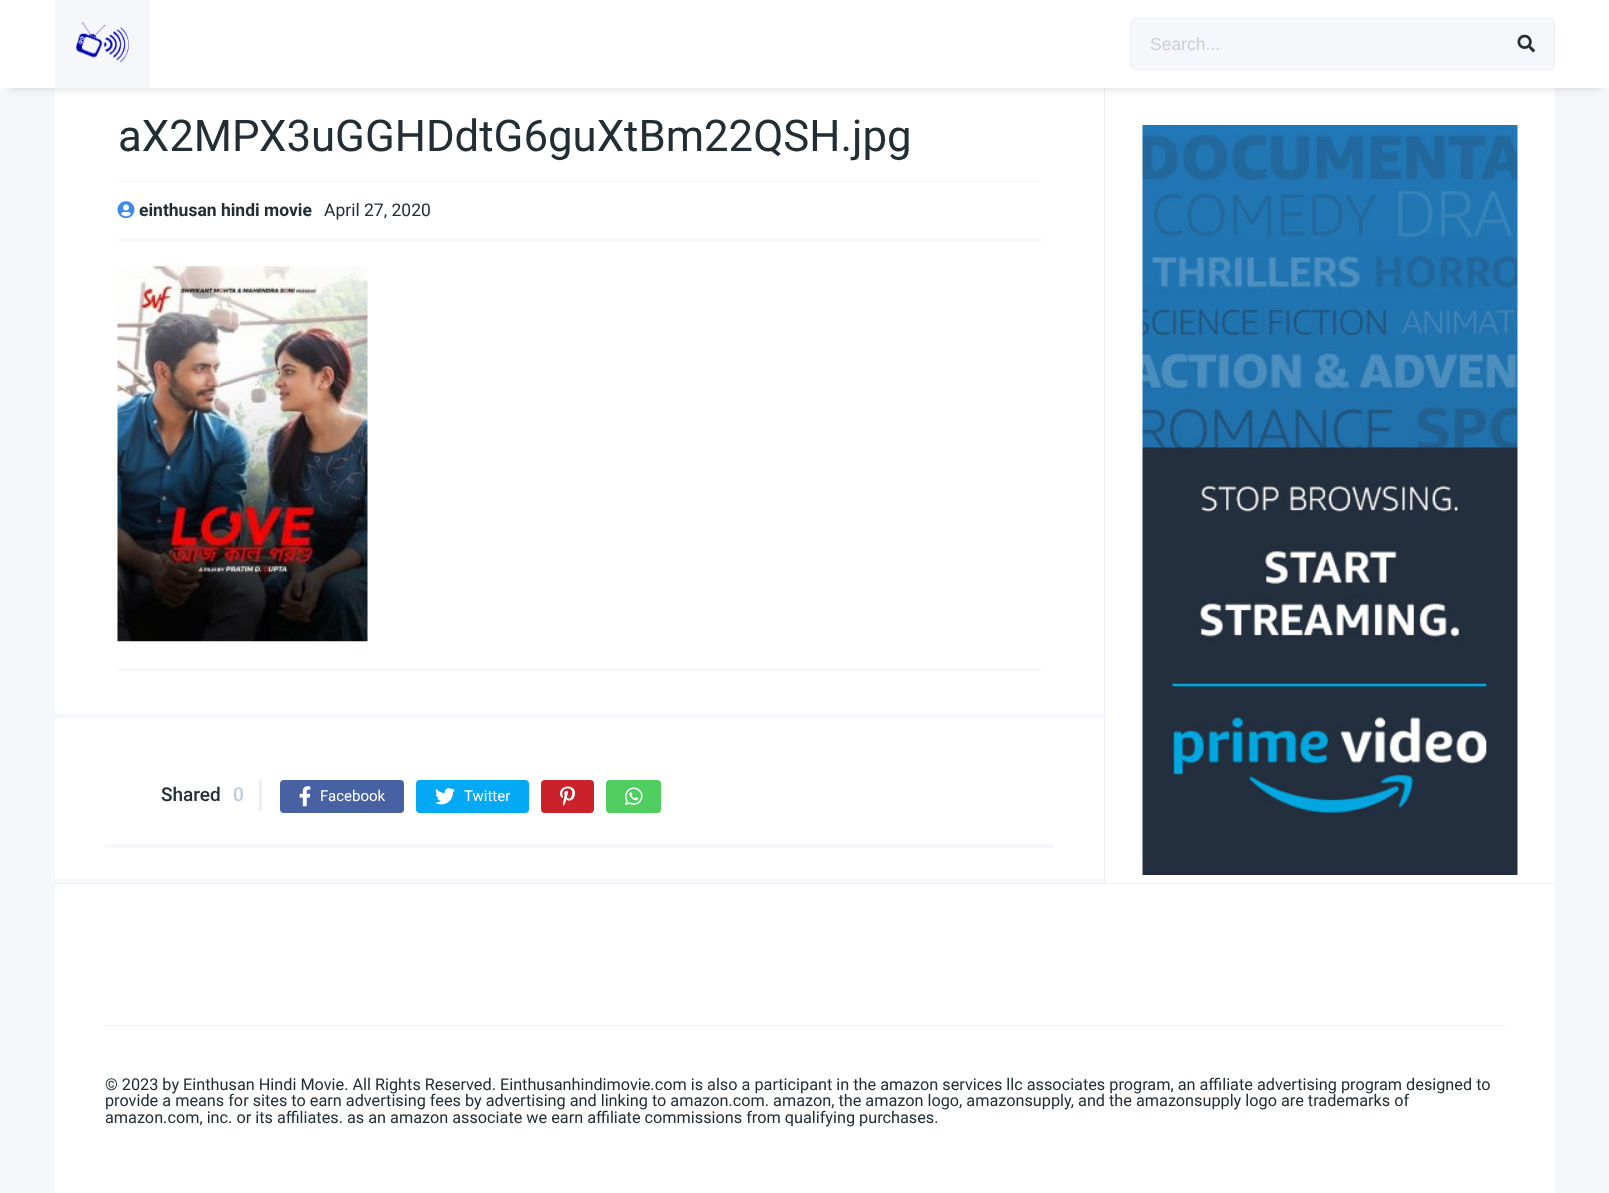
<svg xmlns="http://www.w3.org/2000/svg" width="1609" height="1193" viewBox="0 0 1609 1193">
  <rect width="100%" height="100%" fill="rgb(245,247,250)"/>
  <rect x="55" y="88" width="1500" height="795" fill="rgb(255,255,255)"/>
  <rect x="1104" y="88" width="1" height="795" fill="rgb(236,239,245)"/>
  <rect x="9" y="21" width="1592" height="70" fill="rgba(0,0,0,0.09)" filter="blur(3px)"/>
  <rect x="0" y="0" width="1609" height="88" fill="rgb(255,255,255)"/>
  <rect x="55" y="0" width="95" height="88" fill="rgb(245,247,250)"/>
  <image x="76" y="22" width="53" height="41" href="pic1.png"/>
  <rect x="1130.5" y="18.5" width="424" height="51" rx="5.5" fill="rgb(245,247,250)" stroke="rgb(236,239,245)"/>
  <text x="1150" y="50" font-family="Liberation Sans" font-size="17.5" fill="rgb(199,208,220)">Search...</text>
  <image x="1517" y="34" width="18" height="19" href="pic2.png"/>
  <rect x="55" y="883" width="1500" height="1" fill="rgb(236,239,245)"/>
  <rect x="55" y="714" width="1049" height="4" fill="rgb(245,247,250)"/>
  <rect x="118" y="181" width="923" height="1" fill="rgb(245,247,250)"/>
  <text x="118" y="151" font-family="Roboto" font-size="43.75" fill="rgb(34,45,52)">aX2MPX3uGGHDdtG6guXtBm22QSH.jpg</text>
  <rect x="118" y="238" width="923" height="4" fill="rgb(245,247,250)"/>
  <image x="117" y="201" width="18" height="18" href="pic3.png"/>
  <text x="139" y="216" font-family="Roboto" font-size="17.5" font-weight="bold" fill="rgb(34,45,52)">einthusan hindi movie</text>
  <text x="324" y="216" font-family="Roboto" font-size="17.5" fill="rgb(34,45,52)">April 27, 2020</text>
  <rect x="118" y="669" width="923" height="1" fill="rgb(236,239,245)"/>
  <image x="117" y="266" width="251" height="376" href="pic4.png"/>
  <rect x="55" y="879" width="1049" height="4" fill="rgb(245,247,250)"/>
  <rect x="105" y="844" width="949" height="4" fill="rgb(245,247,250)"/>
  <rect x="259" y="780" width="3" height="31" fill="rgb(236,239,245)"/>
  <text x="161" y="801" font-family="Roboto" font-size="19" font-weight="500" fill="rgb(34,45,52)">Shared</text>
  <text x="233" y="801" font-family="Roboto" font-size="19" font-weight="500" fill="rgb(192,201,220)">0</text>
  <rect x="280" y="780" width="124" height="33" rx="4" fill="rgb(72,97,163)"/>
  <image x="299" y="786" width="12" height="21" href="pic5.png"/>
  <text x="320" y="801" font-family="Roboto" font-size="15" fill="rgb(255,255,255)">Facebook</text>
  <rect x="416" y="780" width="113" height="33" rx="4" fill="rgb(3,169,244)"/>
  <image x="435" y="788" width="20" height="17" href="pic6.png"/>
  <text x="464" y="801" font-family="Roboto" font-size="15" fill="rgb(255,255,255)">Twitter</text>
  <rect x="541" y="780" width="53" height="33" rx="4" fill="rgb(202,33,42)"/>
  <image x="560" y="786" width="15" height="20" href="pic7.png"/>
  <rect x="606" y="780" width="55" height="33" rx="4" fill="rgb(81,206,96)"/>
  <image x="625" y="787" width="18" height="18" href="pic8.png"/>
  <image x="1142" y="125" width="376" height="750" href="pic9.png"/>
  <rect x="55" y="884" width="1500" height="309" fill="rgb(255,255,255)"/>
  <rect x="105" y="1025" width="1400" height="1" fill="rgb(236,239,245)"/>
  <g font-family="Roboto" font-size="16.25" fill="rgb(34,45,52)">
    <text>
      <tspan x="105" y="1090">© 2023 by Einthusan Hindi Movie. All Rights Reserved. Einthusanhindimovie.com is also a participant in the amazon services llc associates program, an affiliate advertising program designed to</tspan>
      <tspan x="105" y="1106">provide a means for sites to earn advertising fees by advertising and linking to amazon.com. amazon, the amazon logo, amazonsupply, and the amazonsupply logo are trademarks of</tspan>
      <tspan x="105" y="1123">amazon.com, inc. or its affiliates. as an amazon associate we earn affiliate commissions from qualifying purchases.</tspan>
    </text>
  </g>
</svg>
